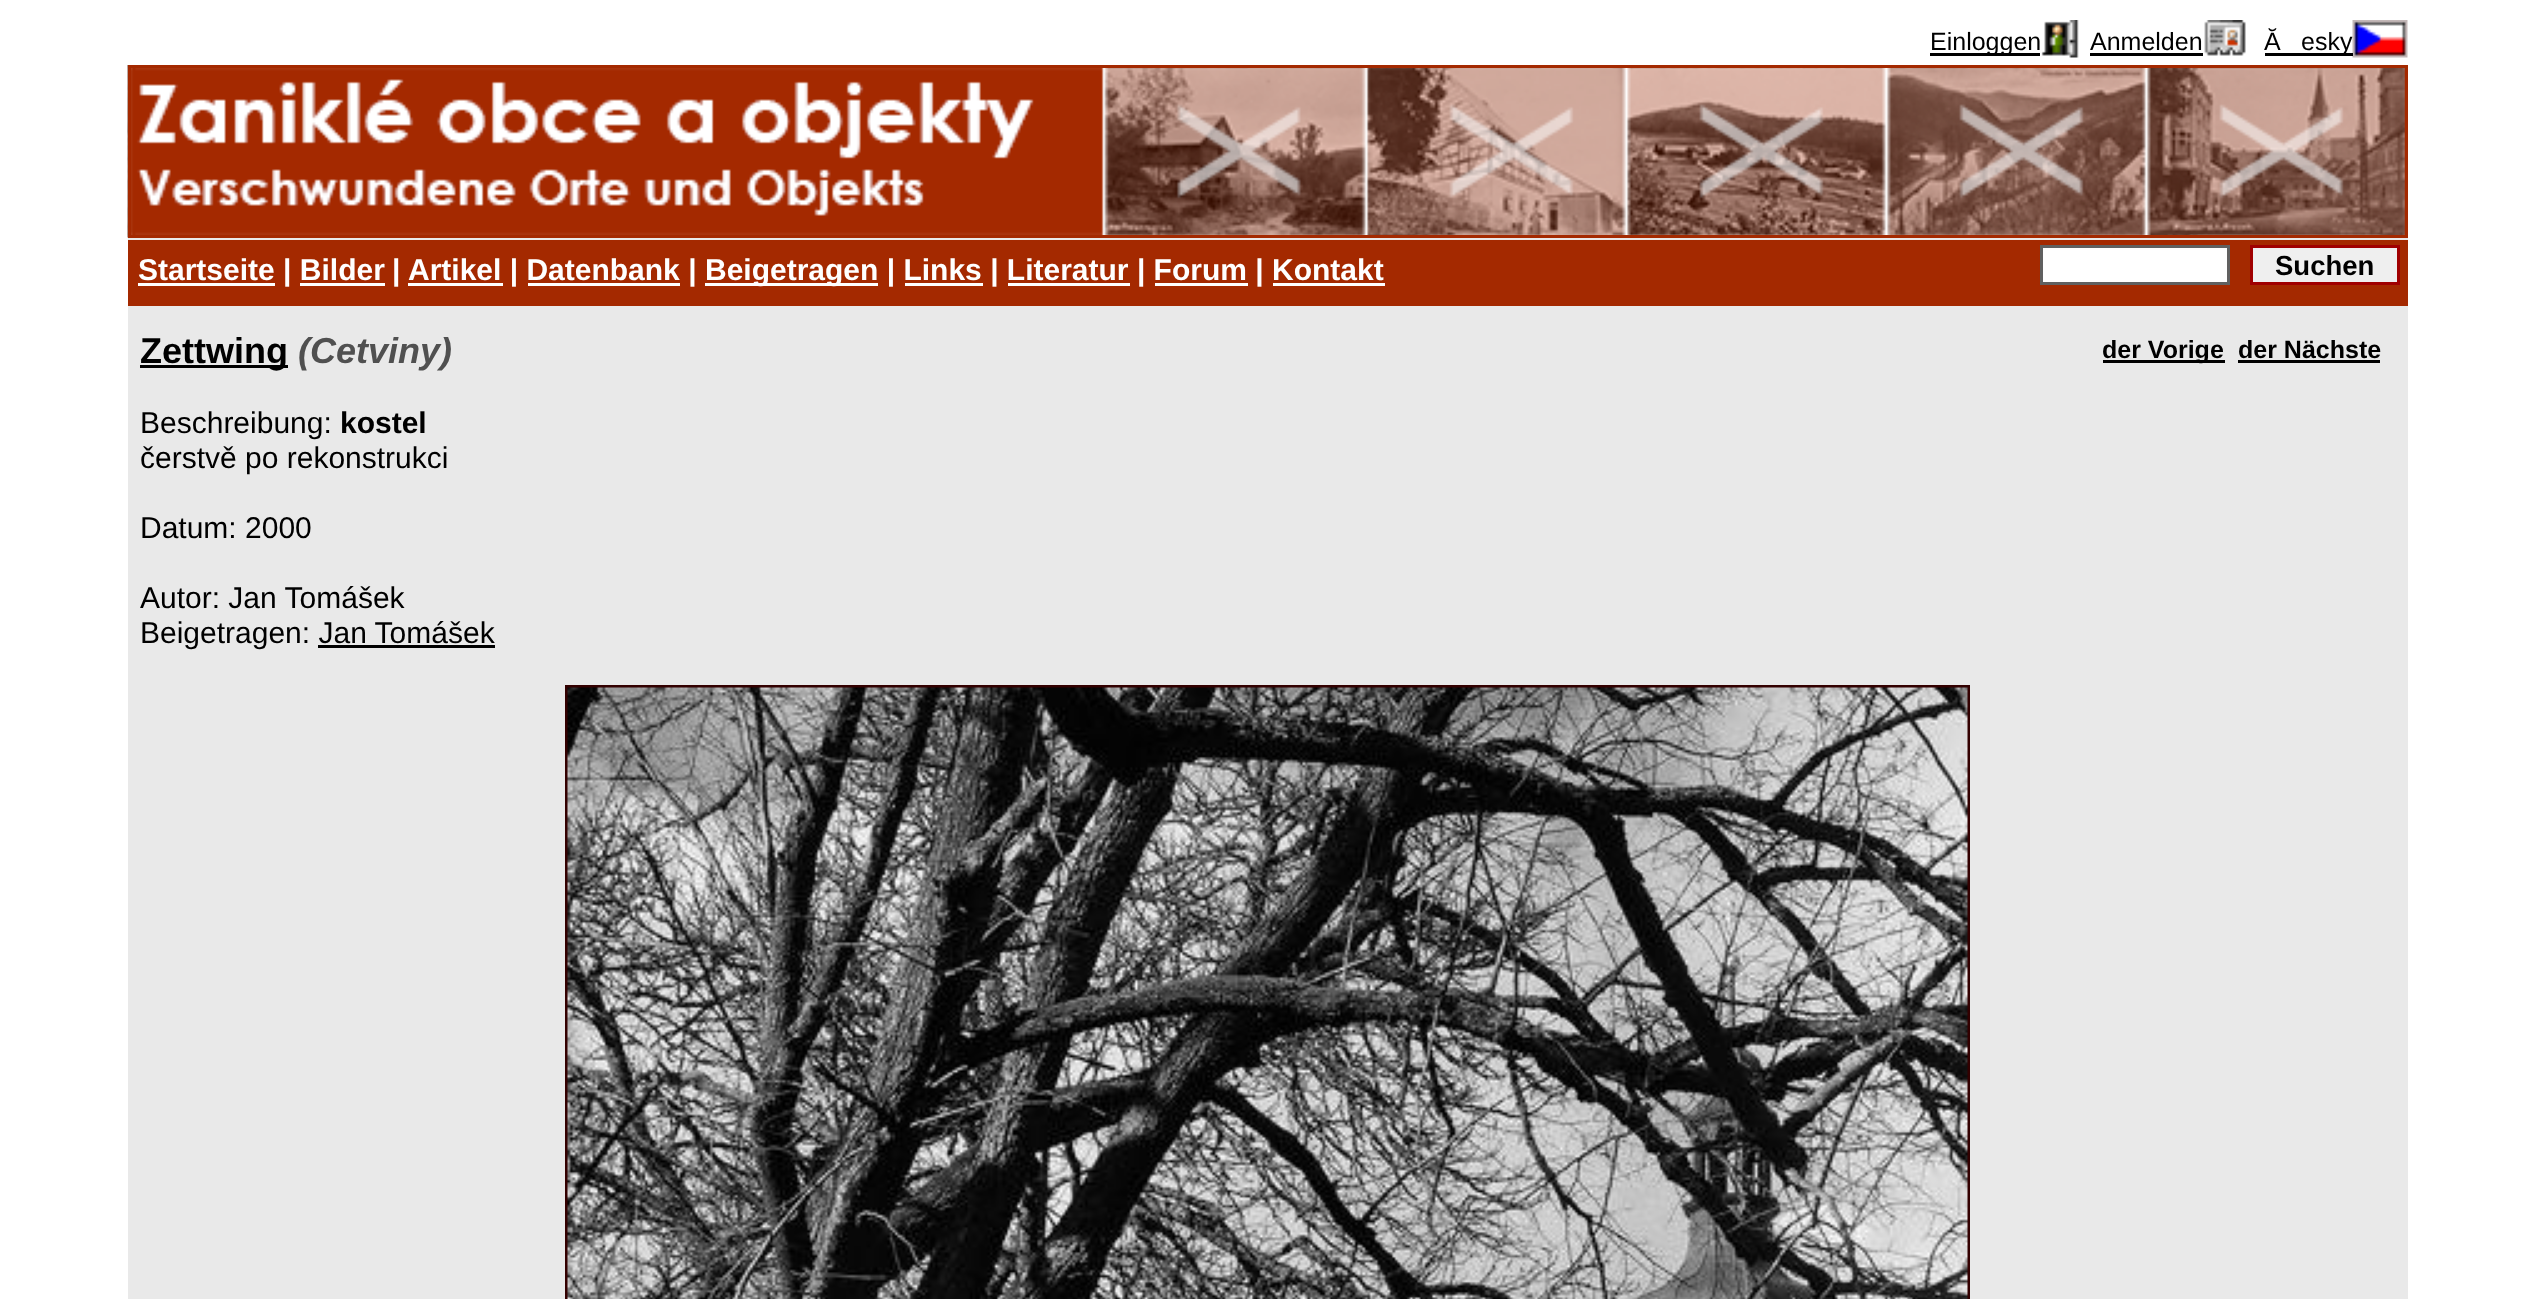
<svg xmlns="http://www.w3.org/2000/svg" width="2533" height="1299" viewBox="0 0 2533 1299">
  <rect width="100%" height="100%" fill="rgb(255,255,255)"/>
  <rect x="128" y="238" width="2280" height="1061" fill="rgb(233,233,233)"/>
  <rect x="1930" y="53" width="110" height="3" fill="rgb(0,0,0)"/>
  <text x="1930" y="50" font-family="Liberation Sans" font-size="25" fill="rgb(0,0,0)">Einloggen</text>
  <image x="2041" y="20" width="38" height="38" href="pic1.png"/>
  <text x="2090" y="50" font-family="Liberation Sans" font-size="25" fill="rgb(0,0,0)">Anmelden</text>
  <rect x="2090" y="53" width="113" height="3" fill="rgb(0,0,0)"/>
  <image x="2204" y="20" width="42" height="36" href="pic2.png"/>
  <text x="2264" y="50" font-family="Liberation Sans" font-size="25" fill="rgb(0,0,0)">Ă</text>
  <image x="2352" y="20" width="56" height="38" href="pic3.png"/>
  <rect x="2265" y="53" width="88" height="3" fill="rgb(0,0,0)"/>
  <text x="2301" y="50" font-family="Liberation Sans" font-size="25" fill="rgb(0,0,0)">esky</text>
  <image x="127" y="65" width="2278" height="173" href="pic4.png"/>
  <rect x="129.5" y="66.5" width="2277" height="170" fill="none" stroke="rgb(164,41,0)" stroke-width="3"/>
  <rect x="128" y="240" width="2280" height="66" fill="rgb(164,41,0)"/>
  <rect x="138" y="283" width="137" height="3" fill="rgb(255,255,255)"/>
  <g font-family="Liberation Sans" font-size="30" font-weight="bold" fill="rgb(255,255,255)">
    <text x="138" y="280">Startseite | Bilder</text>
    <text x="392" y="280">|</text>
  </g>
  <rect x="408" y="283" width="95" height="3" fill="rgb(255,255,255)"/>
  <text x="408" y="280" font-family="Liberation Sans" font-size="30" font-weight="bold" fill="rgb(255,255,255)">Artikel | Datenbank |</text>
  <rect x="705" y="283" width="173" height="3" fill="rgb(255,255,255)"/>
  <text x="705" y="280" font-family="Liberation Sans" font-size="30" font-weight="bold" fill="rgb(255,255,255)">Beigetragen | Links | Literatur | Forum | Kontakt</text>
  <rect x="300" y="283" width="85" height="3" fill="rgb(255,255,255)"/>
  <rect x="528" y="283" width="152" height="3" fill="rgb(255,255,255)"/>
  <rect x="905" y="283" width="78" height="3" fill="rgb(255,255,255)"/>
  <rect x="1008" y="283" width="122" height="3" fill="rgb(255,255,255)"/>
  <rect x="1155" y="283" width="93" height="3" fill="rgb(255,255,255)"/>
  <rect x="1273" y="283" width="112" height="3" fill="rgb(255,255,255)"/>
  <rect x="2041.5" y="246.5" width="187" height="37" fill="rgb(255,255,255)" stroke="rgb(96,96,96)" stroke-width="3"/>
  <rect x="2251.5" y="246.5" width="147" height="37" fill="rgb(239,239,239)" stroke="rgb(160,0,0)" stroke-width="3"/>
  <text x="2275" y="275" font-family="Liberation Sans" font-size="27.5" font-weight="bold" fill="rgb(0,0,0)">Suchen</text>
  <rect x="140" y="365" width="148" height="3" fill="rgb(0,0,0)"/>
  <text x="140" y="363" font-family="Liberation Sans" font-size="36" font-weight="bold" fill="rgb(0,0,0)">Zettwing</text>
  <text x="298" y="363" font-family="Liberation Sans" font-size="36" font-weight="bold" font-style="italic" fill="rgb(80,80,80)">(Cetviny)</text>
  <rect x="2103" y="360" width="122" height="3" fill="rgb(0,0,0)"/>
  <g font-family="Liberation Sans" font-size="25" font-weight="bold" fill="rgb(0,0,0)">
    <text x="2102" y="358">der Vorige</text>
    <text x="2238" y="358">der Nächste</text>
  </g>
  <rect x="2238" y="360" width="142" height="3" fill="rgb(0,0,0)"/>
  <text x="140" y="433" font-family="Liberation Sans" font-size="30" fill="rgb(0,0,0)">Beschreibung:</text>
  <text x="340" y="433" font-family="Liberation Sans" font-size="30" font-weight="bold" fill="rgb(0,0,0)">kostel</text>
  <g font-family="Liberation Sans" font-size="30" fill="rgb(0,0,0)">
    <text x="140" y="468">čerstvě po rekonstrukci</text>
    <text x="140" y="538">Datum: 2000</text>
    <text>
      <tspan x="140" y="608">Autor: Jan Tomášek</tspan>
      <tspan x="140" y="643">Beigetragen: Jan Tomášek</tspan>
    </text>
  </g>
  <rect x="318" y="645" width="177" height="3" fill="rgb(0,0,0)"/>
  <rect x="566.5" y="686.5" width="1402" height="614" fill="none" stroke="rgb(51,0,0)" stroke-width="3"/>
  <image x="567" y="687" width="1401" height="612" href="pic5.png"/>
</svg>
